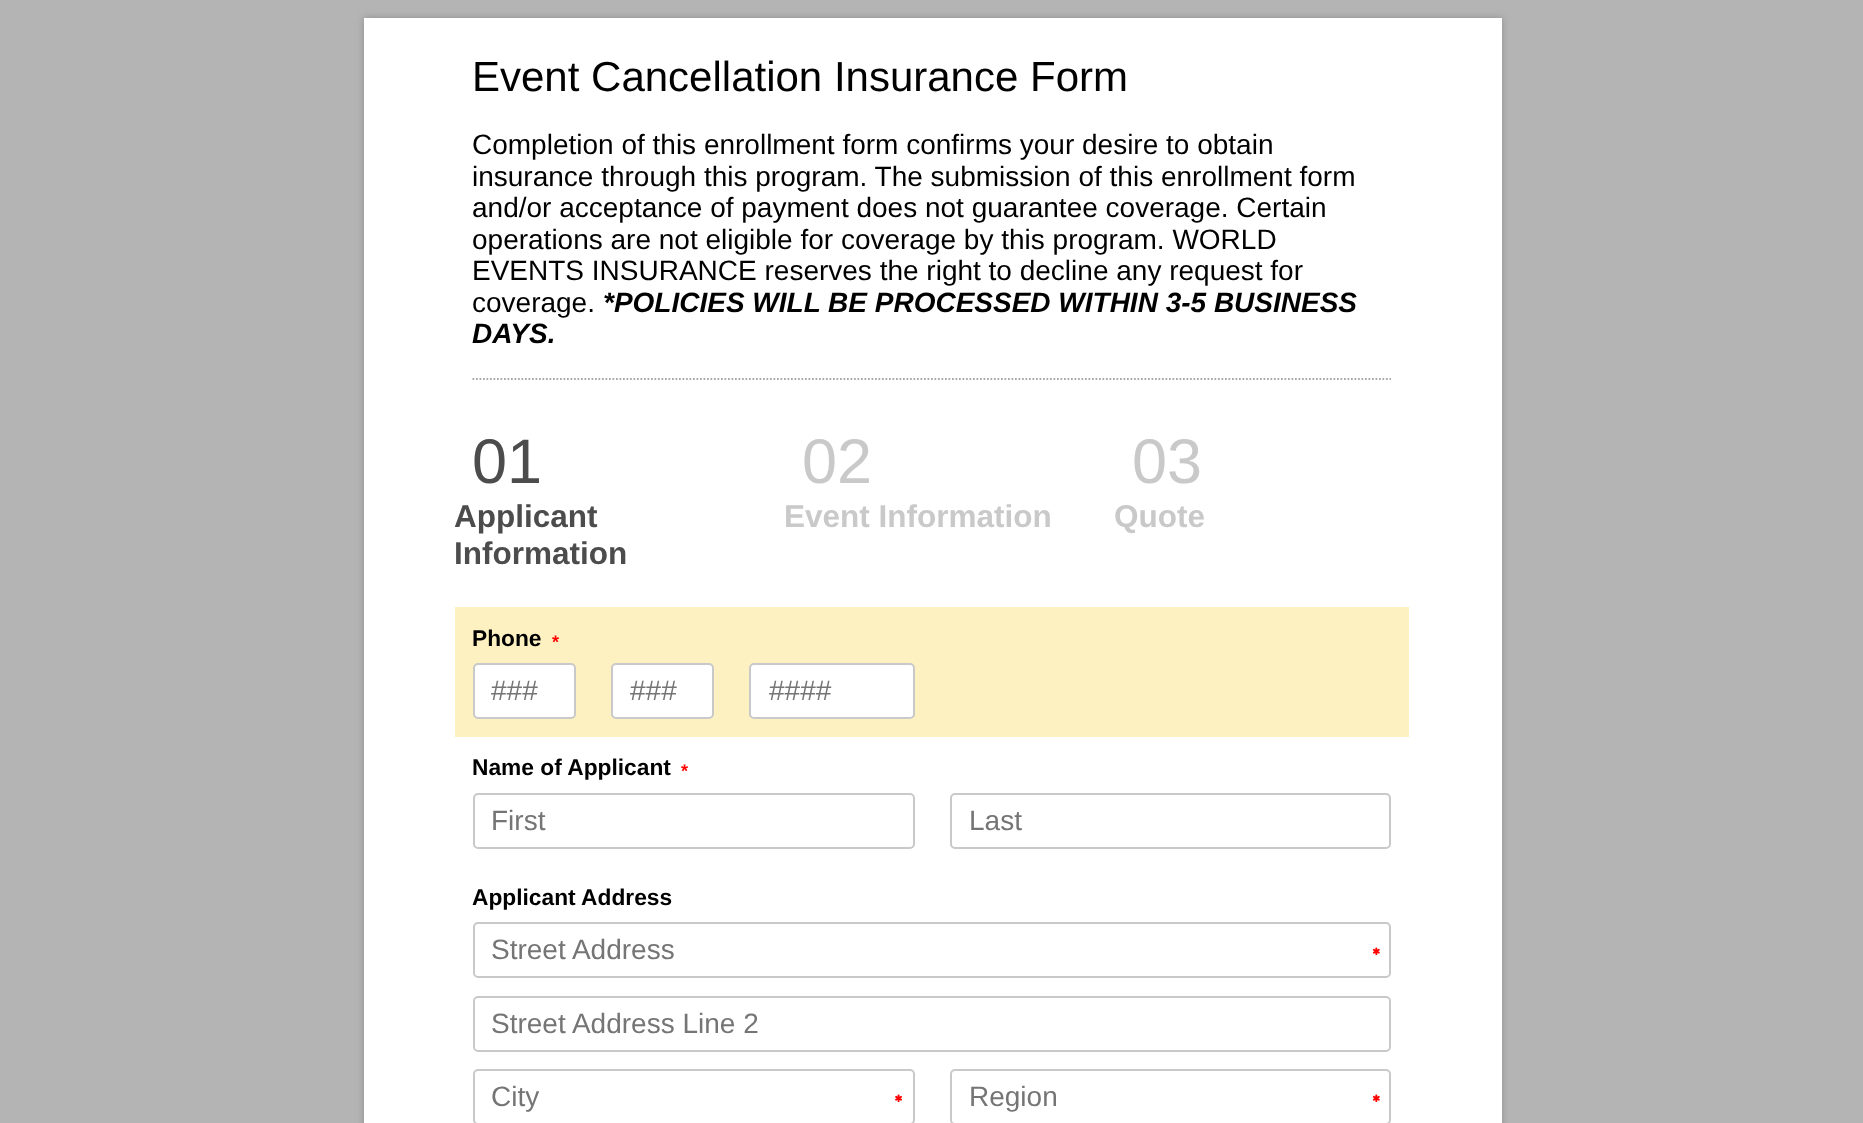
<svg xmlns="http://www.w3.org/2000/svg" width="1863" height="1123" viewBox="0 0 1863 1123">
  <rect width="100%" height="100%" fill="rgb(180,180,180)"/>
  <rect x="364" y="18" width="1138" height="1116" fill="rgb(142,142,142)" filter="blur(3.5px)"/>
  <rect x="364" y="18" width="1138" height="1105" fill="rgb(255,255,255)"/>
  <text x="472" y="91" font-family="Liberation Sans" font-size="42" fill="rgb(0,0,0)">Event Cancellation Insurance Form</text>
  <g font-family="Liberation Sans" font-size="28" fill="rgb(0,0,0)">
    <text>
      <tspan x="472" y="154">Completion of this enrollment form confirms your desire to obtain</tspan>
      <tspan x="472" y="186">insurance through this program. The submission of this enrollment form</tspan>
      <tspan x="472" y="217">and/or acceptance of payment does not guarantee coverage. Certain</tspan>
      <tspan x="472" y="249">operations are not eligible for coverage by this program. WORLD</tspan>
      <tspan x="472" y="280">EVENTS INSURANCE reserves the right to decline any request for</tspan>
      <tspan x="472" y="312">coverage.</tspan>
    </text>
  </g>
  <g font-family="Liberation Sans" font-size="28" font-weight="bold" font-style="italic" fill="rgb(0,0,0)">
    <text x="603" y="312">*POLICIES WILL BE PROCESSED WITHIN 3-5 BUSINESS</text>
    <text x="472" y="343">DAYS.</text>
  </g>
  <path d="M472.5 379H1391" fill="none" stroke="rgb(170,170,170)" stroke-width="1.8" stroke-dasharray="1.75 1.75"/>
  <text x="472" y="483" font-family="Liberation Sans" font-size="63" fill="rgb(76,76,76)">01</text>
  <g font-family="Liberation Sans" font-size="31.5" font-weight="bold" fill="rgb(76,76,76)">
    <text>
      <tspan x="454" y="527">Applicant</tspan>
      <tspan x="454" y="564">Information</tspan>
    </text>
  </g>
  <text x="802" y="483" font-family="Liberation Sans" font-size="63" fill="rgb(201,201,201)">02</text>
  <text x="784" y="527" font-family="Liberation Sans" font-size="31.5" font-weight="bold" fill="rgb(201,201,201)">Event Information</text>
  <text x="1132" y="483" font-family="Liberation Sans" font-size="63" fill="rgb(201,201,201)">03</text>
  <text x="1114" y="527" font-family="Liberation Sans" font-size="31.5" font-weight="bold" fill="rgb(201,201,201)">Quote</text>
  <rect x="455" y="607" width="954" height="130" fill="rgb(254,241,193)"/>
  <text x="472" y="646" font-family="Liberation Sans" font-size="22.75" font-weight="bold" fill="rgb(0,0,0)">Phone</text>
  <text x="552" y="648" font-family="Liberation Sans" font-size="18" font-weight="bold" fill="rgb(255,0,0)">*</text>
  <rect x="474" y="664" width="101" height="54" rx="4" fill="rgb(255,255,255)" stroke="rgb(201,201,201)" stroke-width="2"/>
  <text x="491" y="700" font-family="Liberation Sans" font-size="28" fill="rgb(117,117,117)">###</text>
  <rect x="612" y="664" width="101" height="54" rx="4" fill="rgb(255,255,255)" stroke="rgb(201,201,201)" stroke-width="2"/>
  <text x="630" y="700" font-family="Liberation Sans" font-size="28" fill="rgb(117,117,117)">###</text>
  <rect x="750" y="664" width="164" height="54" rx="4" fill="rgb(255,255,255)" stroke="rgb(201,201,201)" stroke-width="2"/>
  <text x="769" y="700" font-family="Liberation Sans" font-size="28" fill="rgb(117,117,117)">####</text>
  <text x="472" y="775" font-family="Liberation Sans" font-size="22.75" font-weight="bold" fill="rgb(0,0,0)">Name of Applicant</text>
  <text x="681" y="777" font-family="Liberation Sans" font-size="18" font-weight="bold" fill="rgb(255,0,0)">*</text>
  <rect x="474" y="794" width="440" height="54" rx="4" fill="none" stroke="rgb(201,201,201)" stroke-width="2"/>
  <text x="491" y="830" font-family="Liberation Sans" font-size="28" fill="rgb(117,117,117)">First</text>
  <rect x="951" y="794" width="439" height="54" rx="4" fill="none" stroke="rgb(201,201,201)" stroke-width="2"/>
  <text x="969" y="830" font-family="Liberation Sans" font-size="28" fill="rgb(117,117,117)">Last</text>
  <text x="472" y="905" font-family="Liberation Sans" font-size="22.75" font-weight="bold" fill="rgb(0,0,0)">Applicant Address</text>
  <image x="1372" y="947" width="8" height="8" href="pic1.png"/>
  <rect x="474" y="923" width="916" height="54" rx="4" fill="none" stroke="rgb(201,201,201)" stroke-width="2"/>
  <text x="491" y="959" font-family="Liberation Sans" font-size="28" fill="rgb(117,117,117)">Street Address</text>
  <rect x="474" y="997" width="916" height="54" rx="4" fill="none" stroke="rgb(201,201,201)" stroke-width="2"/>
  <text x="491" y="1033" font-family="Liberation Sans" font-size="28" fill="rgb(117,117,117)">Street Address Line 2</text>
  <image x="895" y="1094" width="7" height="8" href="pic2.png"/>
  <rect x="474" y="1070" width="440" height="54" rx="4" fill="none" stroke="rgb(201,201,201)" stroke-width="2"/>
  <text x="491" y="1106" font-family="Liberation Sans" font-size="28" fill="rgb(117,117,117)">City</text>
  <image x="1372" y="1094" width="8" height="8" href="pic1.png"/>
  <rect x="951" y="1070" width="439" height="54" rx="4" fill="none" stroke="rgb(201,201,201)" stroke-width="2"/>
  <text x="969" y="1106" font-family="Liberation Sans" font-size="28" fill="rgb(117,117,117)">Region</text>
</svg>
